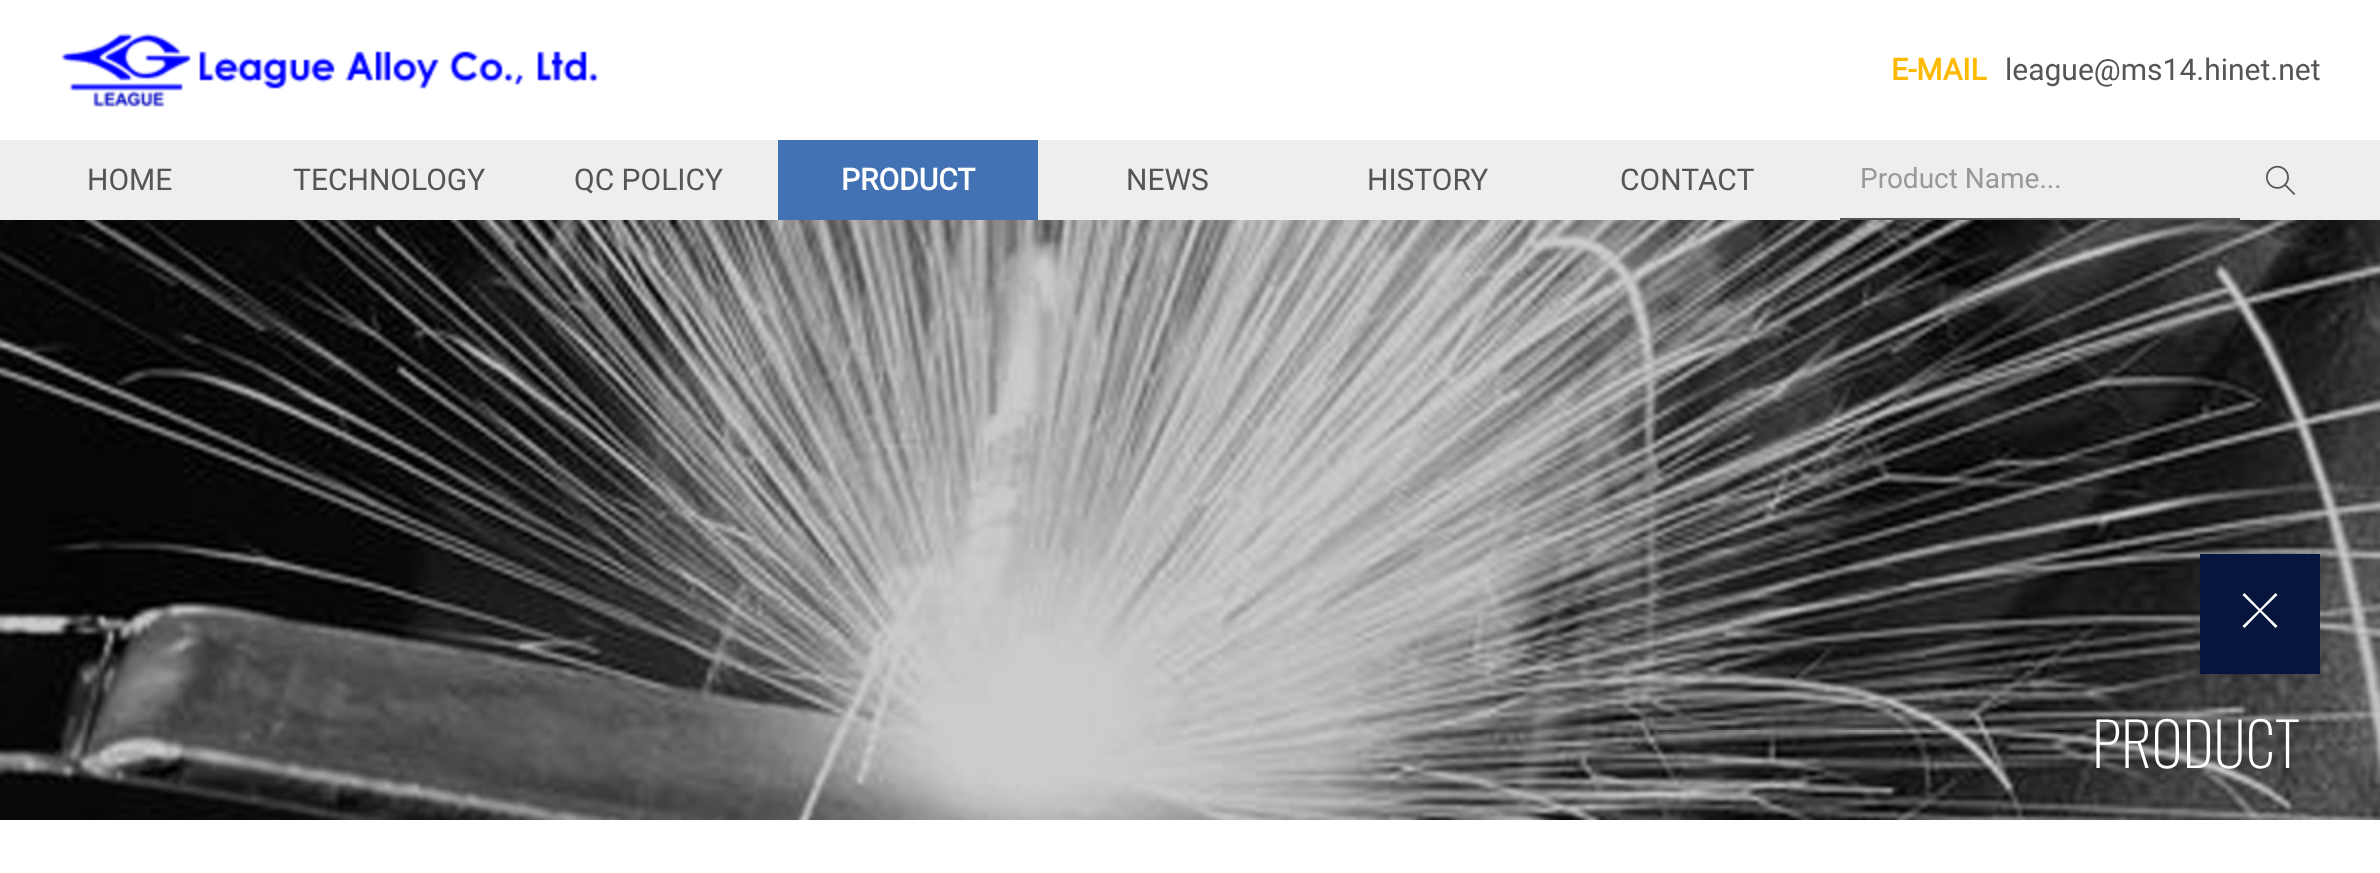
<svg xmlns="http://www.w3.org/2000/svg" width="2380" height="873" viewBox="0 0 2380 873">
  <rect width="100%" height="100%" fill="rgb(255,255,255)"/>
  <image x="61" y="33" width="538" height="74" href="pic1.png"/>
  <text x="1891" y="80" font-family="Roboto" font-size="30" font-weight="bold" fill="rgb(255,186,0)">E-MAIL</text>
  <text x="2005" y="80" font-family="Roboto" font-size="30" fill="rgb(85,85,85)">league@ms14.hinet.net</text>
  <rect x="0" y="140" width="2380" height="80" fill="rgb(238,238,238)"/>
  <g font-family="Roboto" font-size="30" fill="rgb(85,85,85)">
    <text x="87" y="190">HOME</text>
    <text x="293" y="190">TECHNOLOGY</text>
    <text x="574" y="190">QC POLICY</text>
  </g>
  <rect x="778" y="140" width="260" height="80" fill="rgb(66,114,180)"/>
  <text x="841" y="190" font-family="Roboto" font-size="30" font-weight="bold" fill="rgb(255,255,255)">PRODUCT</text>
  <g font-family="Roboto" font-size="30" fill="rgb(85,85,85)">
    <text x="1126" y="190">NEWS</text>
    <text x="1367" y="190">HISTORY</text>
    <text x="1620" y="190">CONTACT</text>
  </g>
  <rect x="1840" y="218" width="400" height="2" fill="rgb(85,85,85)"/>
  <text x="1860" y="188" font-family="Roboto" font-size="28" fill="rgb(153,153,153)">Product Name...</text>
  <image x="2266" y="165" width="30" height="30" href="pic2.png"/>
  <image x="0" y="220" width="2380" height="600" href="pic3.png"/>
  <rect x="2200" y="554" width="120" height="120" fill="rgb(5,21,61)"/>
  <path d="M2261.5 610.5L2277.5 626L2275.5 628L2260 612L2244.5 628L2242.5 626L2258.5 610.5L2242.5 595L2244.5 593L2260 609L2275.5 593L2277.5 595Z" fill="rgb(255,255,255)"/>
  <text x="2092" y="768" font-family="Oswald" font-size="60" font-weight="200" fill="rgb(255,255,255)">PRODUCT</text>
</svg>
